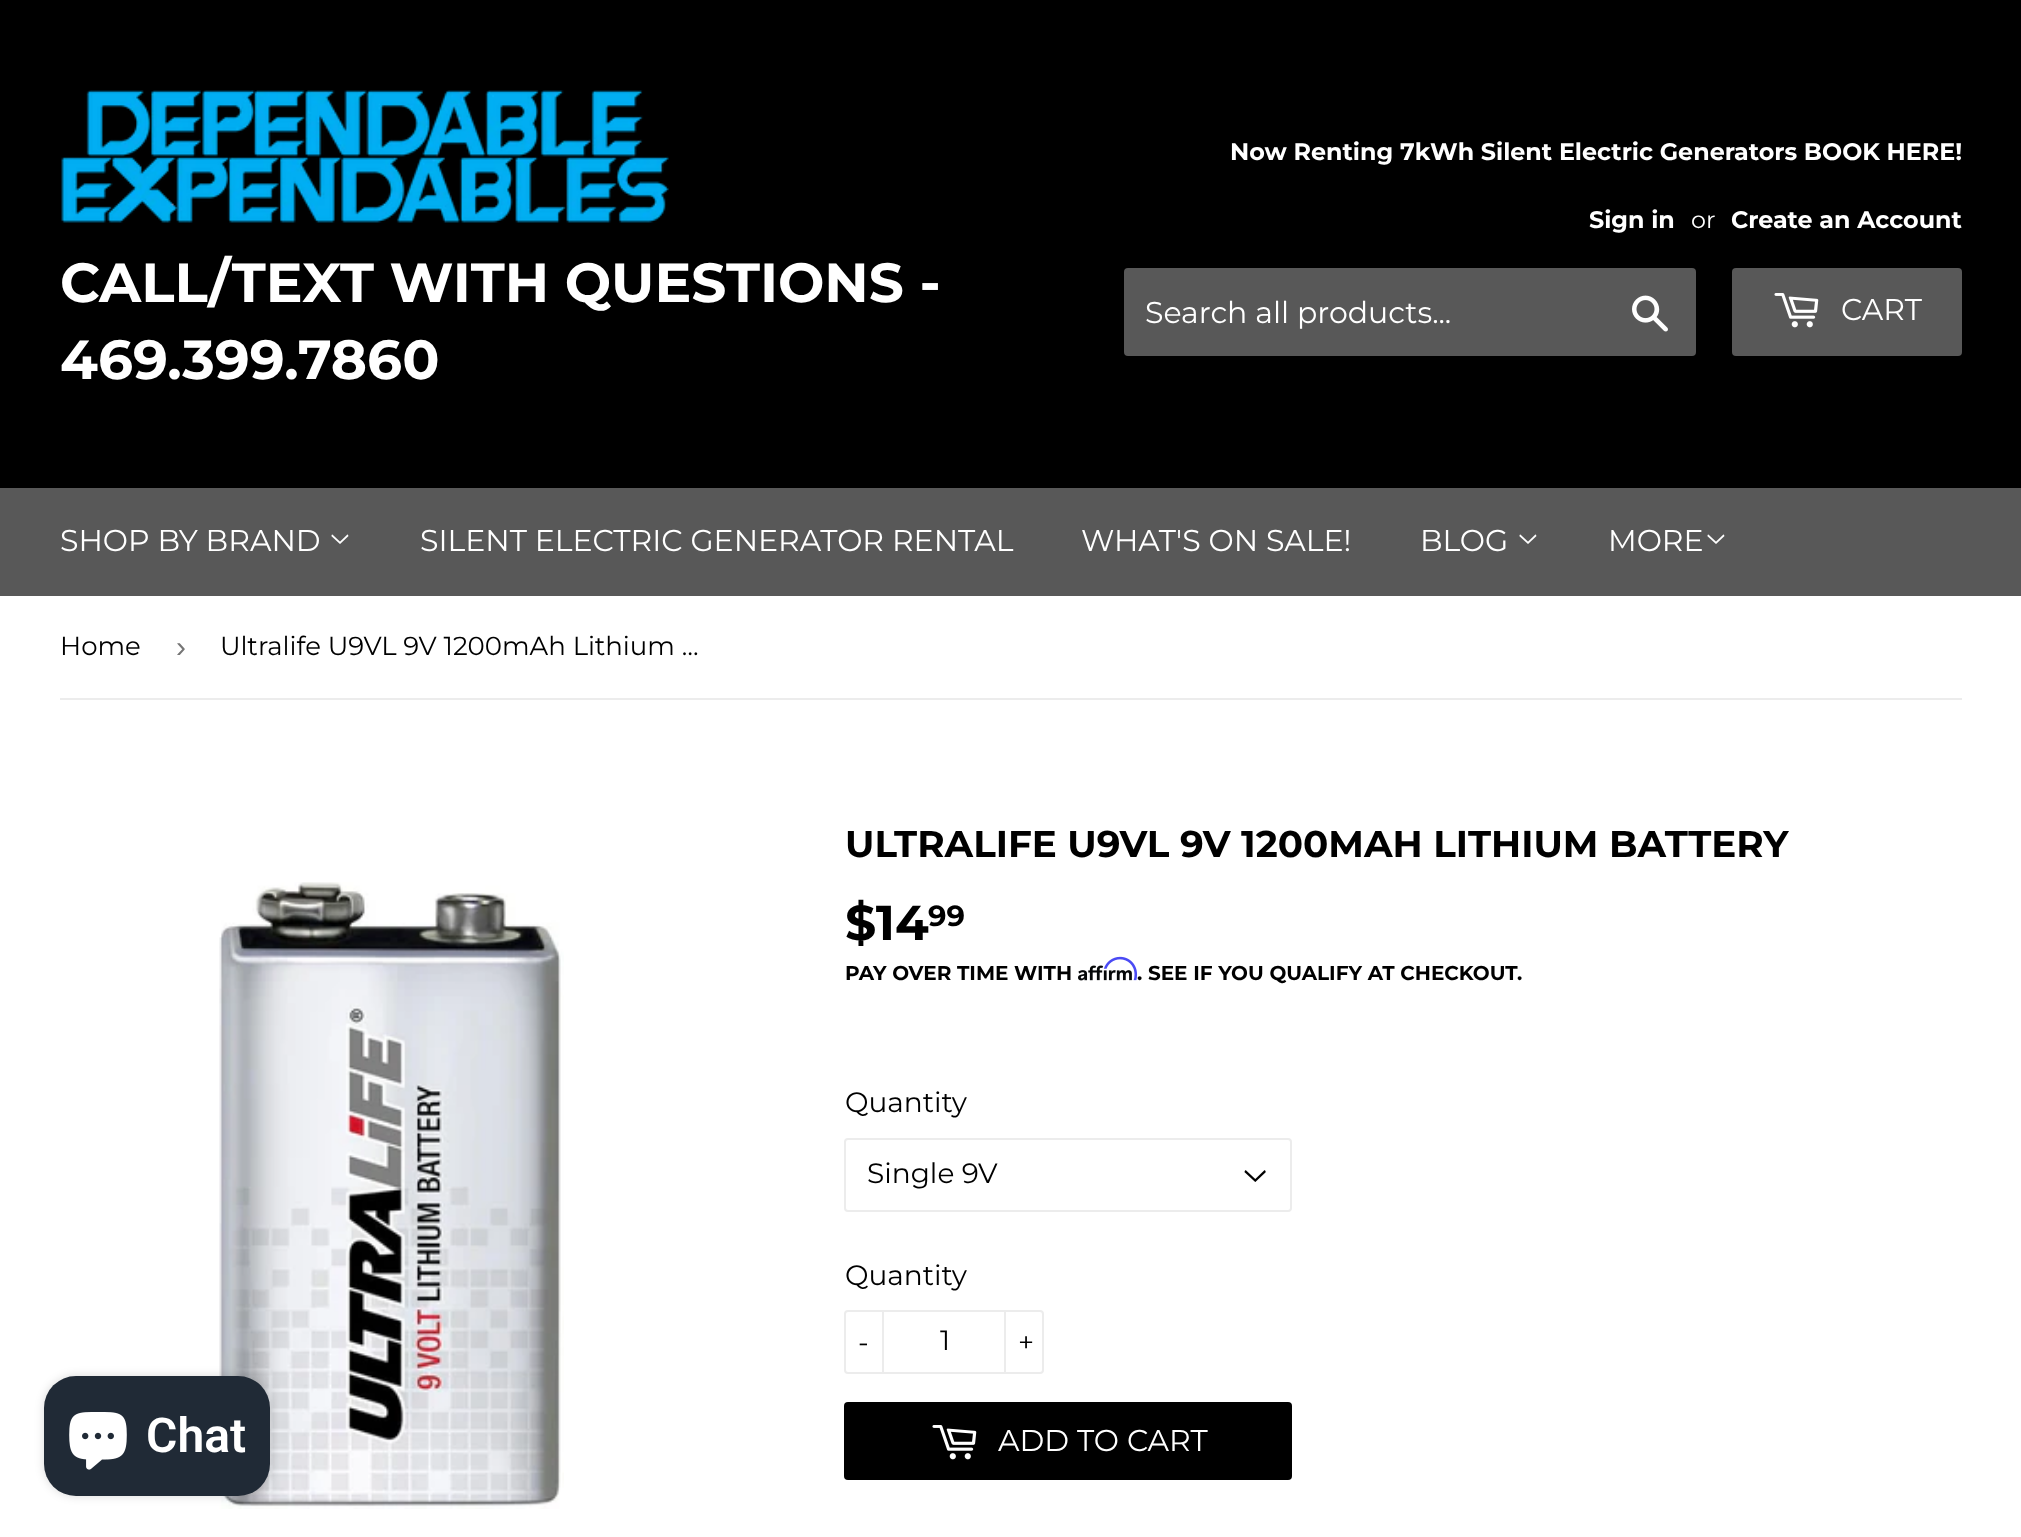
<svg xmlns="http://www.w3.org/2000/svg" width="2021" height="1537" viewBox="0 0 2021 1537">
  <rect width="100%" height="100%" fill="rgb(255,255,255)"/>
  <rect x="0" y="0" width="2021" height="488" fill="rgb(0,0,0)"/>
  <image x="61" y="90" width="608" height="133" href="pic1.png"/>
  <g font-family="Montserrat" font-size="55" font-weight="bold" fill="rgb(255,255,255)">
    <text>
      <tspan x="60" y="302">CALL/TEXT WITH QUESTIONS -</tspan>
      <tspan x="60" y="379">469.399.7860</tspan>
    </text>
  </g>
  <g font-family="Montserrat" font-size="23.8" font-weight="bold" fill="rgb(255,255,255)">
    <text x="1230" y="160">Now Renting 7kWh Silent Electric Generators BOOK HERE!</text>
    <text x="1589" y="228">Sign in</text>
  </g>
  <text x="1691" y="228" font-family="Montserrat" font-size="23.8" fill="rgb(255,255,255)">or</text>
  <text x="1731" y="228" font-family="Montserrat" font-size="23.8" font-weight="bold" fill="rgb(255,255,255)">Create an Account</text>
  <rect x="1124" y="268" width="572" height="88" rx="4" fill="rgb(88,88,88)"/>
  <text x="1145" y="323" font-family="Montserrat" font-size="30" fill="rgb(255,255,255)">Search all products...</text>
  <image x="1632" y="295" width="36" height="37" href="pic2.png"/>
  <rect x="1732" y="268" width="230" height="88" rx="4" fill="rgb(88,88,88)"/>
  <image x="1774" y="293" width="45" height="35" href="pic3.png"/>
  <text x="1841" y="320" font-family="Montserrat" font-size="30" fill="rgb(255,255,255)">CART</text>
  <rect x="0" y="488" width="2021" height="108" fill="rgb(88,88,88)"/>
  <text x="60" y="551" font-family="Montserrat" font-size="30" fill="rgb(255,255,255)">SHOP BY BRAND</text>
  <image x="331" y="534" width="18" height="10" href="pic4.png"/>
  <g font-family="Montserrat" font-size="30" fill="rgb(255,255,255)">
    <text x="420" y="551">SILENT ELECTRIC GENERATOR RENTAL</text>
    <text x="1081" y="551">WHAT'S ON SALE!</text>
    <text x="1420" y="551">BLOG</text>
  </g>
  <image x="1519" y="534" width="18" height="10" href="pic4.png"/>
  <text x="1608" y="551" font-family="Montserrat" font-size="30" fill="rgb(255,255,255)">MORE</text>
  <image x="1707" y="534" width="18" height="10" href="pic4.png"/>
  <rect x="60" y="698" width="1902" height="2" fill="rgb(236,236,236)"/>
  <text x="60" y="655" font-family="Montserrat" font-size="26" fill="rgb(0,0,0)">Home</text>
  <text x="176" y="657" font-family="Liberation Sans" font-size="30" fill="rgb(118,118,118)">›</text>
  <text x="220" y="655" font-family="Montserrat" font-size="26" fill="rgb(0,0,0)">Ultralife U9VL 9V 1200mAh Lithium …</text>
  <image x="219" y="882" width="345" height="627" href="pic5.png"/>
  <text x="845" y="857" font-family="Montserrat" font-size="37.3" font-weight="bold" fill="rgb(0,0,0)">ULTRALIFE U9VL 9V 1200MAH LITHIUM BATTERY</text>
  <text x="845" y="940" font-family="Montserrat" font-size="49" font-weight="bold" fill="rgb(0,0,0)">$14</text>
  <text x="928" y="926" font-family="Montserrat" font-size="29" font-weight="bold" fill="rgb(0,0,0)">99</text>
  <text x="845" y="980" font-family="Montserrat" font-size="20" font-weight="bold" fill="rgb(0,0,0)">PAY OVER TIME WITH</text>
  <image x="1078" y="965" width="54" height="16" href="pic7.png"/>
  <text x="1137" y="980" font-family="Montserrat" font-size="20" font-weight="bold" fill="rgb(0,0,0)">. SEE IF YOU QUALIFY AT CHECKOUT.</text>
  <image x="1103" y="956" width="35" height="25" href="pic6.png"/>
  <text x="845" y="1112" font-family="Montserrat" font-size="28" fill="rgb(0,0,0)">Quantity</text>
  <image x="1244" y="1170" width="22" height="12" href="pic8.png"/>
  <rect x="845" y="1139" width="446" height="72" rx="3" fill="none" stroke="rgb(236,236,236)" stroke-width="2"/>
  <g font-family="Montserrat" font-size="28" fill="rgb(0,0,0)">
    <text x="867" y="1183">Single 9V</text>
    <text x="845" y="1285">Quantity</text>
  </g>
  <rect x="845" y="1311" width="198" height="62" rx="3" fill="none" stroke="rgb(236,236,236)" stroke-width="2"/>
  <rect x="882" y="1310" width="2" height="64" fill="rgb(236,236,236)"/>
  <g font-family="Montserrat" font-size="28" fill="rgb(0,0,0)">
    <text x="858" y="1352">-</text>
    <text x="940" y="1350">1</text>
  </g>
  <rect x="1004" y="1310" width="2" height="64" fill="rgb(236,236,236)"/>
  <text x="1018" y="1352" font-family="Montserrat" font-size="28" fill="rgb(0,0,0)">+</text>
  <rect x="844" y="1402" width="448" height="78" rx="4" fill="rgb(0,0,0)"/>
  <image x="932" y="1425" width="45" height="35" href="pic9.png"/>
  <text x="998" y="1451" font-family="Montserrat" font-size="30" fill="rgb(255,255,255)">ADD TO CART</text>
  <rect x="44" y="1376" width="226" height="120" rx="32" fill="rgba(0,0,0,0.15)" filter="blur(5px)"/>
  <rect x="44" y="1376" width="226" height="120" rx="32" fill="rgb(32,42,54)"/>
  <image x="69" y="1412" width="58" height="58" href="pic10.png"/>
  <text x="146" y="1452" font-family="Roboto" font-size="48" font-weight="600" fill="rgb(255,255,255)">Chat</text>
</svg>
